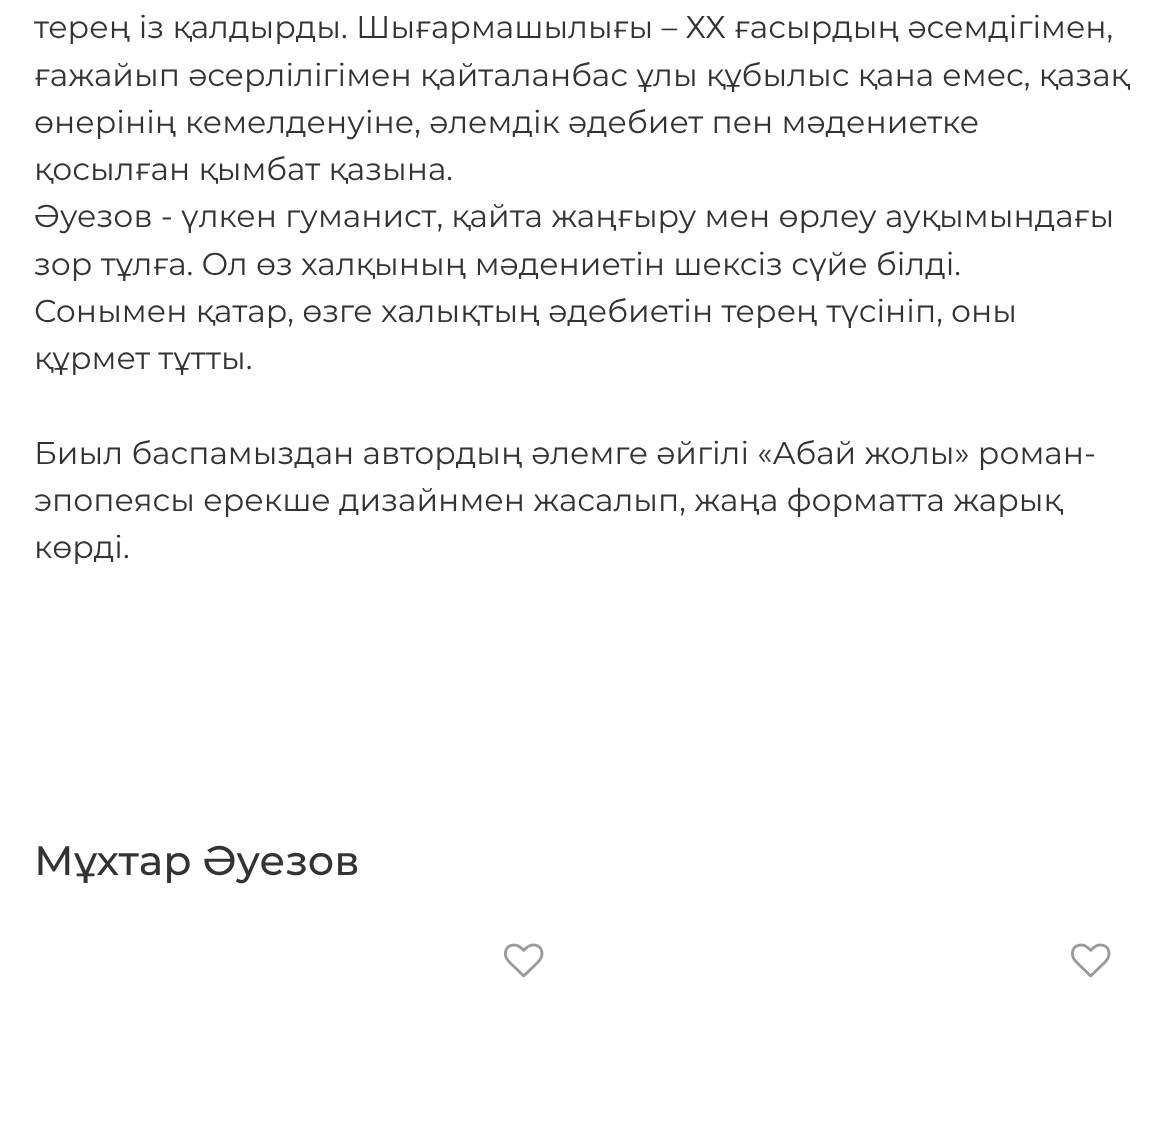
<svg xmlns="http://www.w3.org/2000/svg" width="1166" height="1131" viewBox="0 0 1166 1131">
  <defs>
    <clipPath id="clip1"><rect x="34" y="0" width="1100" height="603"/></clipPath>
  </defs>
  <rect width="100%" height="100%" fill="rgb(255,255,255)"/>
  <g clip-path="url(#clip1)">
    <text x="34" y="38" font-family="Montserrat" font-size="31.5" fill="rgb(51,51,51)">терең із қалдырды. Шығармашылығы – ХХ ғасырдың әсемдігімен,</text>
  </g>
  <g font-family="Montserrat" font-size="31.5" fill="rgb(51,51,51)">
    <text>
      <tspan x="34" y="86">ғажайып әсерлілігімен қайталанбас ұлы құбылыс қана емес, қазақ</tspan>
      <tspan x="34" y="133">өнерінің кемелденуіне, әлемдік әдебиет пен мәдениетке</tspan>
      <tspan x="34" y="180">қосылған қымбат қазына.</tspan>
      <tspan x="34" y="227">Әуезов - үлкен гуманист, қайта жаңғыру мен өрлеу ауқымындағы</tspan>
      <tspan x="34" y="275">зор тұлға. Ол өз халқының мәдениетін шексіз сүйе білді.</tspan>
      <tspan x="34" y="322">Сонымен қатар, өзге халықтың әдебиетін терең түсініп, оны</tspan>
      <tspan x="34" y="369">құрмет тұтты.</tspan>
    </text>
    <text>
      <tspan x="34" y="464">Биыл баспамыздан автордың әлемге әйгілі «Абай жолы» роман-</tspan>
      <tspan x="34" y="511">эпопеясы ерекше дизайнмен жасалып, жаңа форматта жарық</tspan>
      <tspan x="34" y="558">көрді.</tspan>
    </text>
  </g>
  <text x="34" y="875" font-family="Montserrat" font-size="41.25" font-weight="500" fill="rgb(51,51,51)">Мұхтар Әуезов</text>
  <image x="504" y="943" width="40" height="35" href="pic1.png"/>
  <image x="1071" y="943" width="40" height="35" href="pic1.png"/>
</svg>
